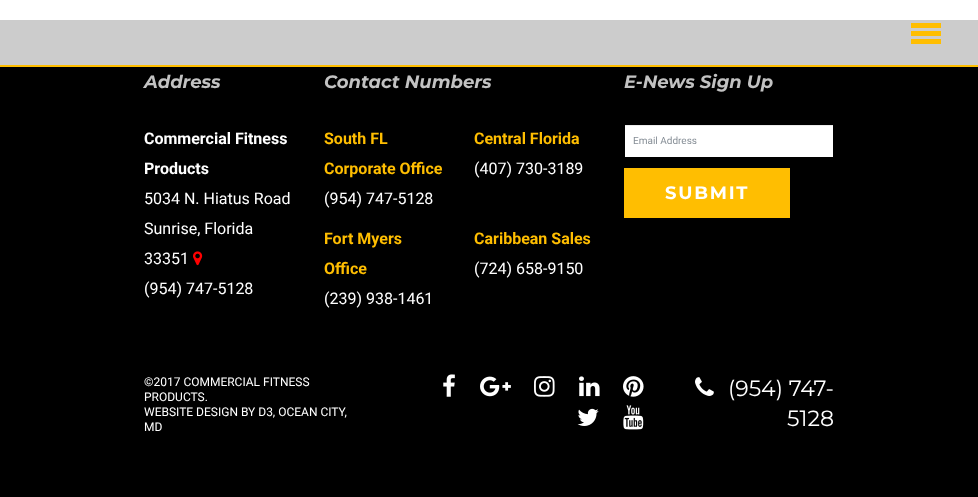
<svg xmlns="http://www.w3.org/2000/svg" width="978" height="497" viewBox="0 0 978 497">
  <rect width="100%" height="100%" fill="rgb(255,255,255)"/>
  <rect x="0" y="65" width="978" height="2" fill="rgb(255,190,1)"/>
  <rect x="0" y="20" width="978" height="45" fill="rgb(204,204,204)"/>
  <rect x="911" y="31" width="30" height="5" fill="rgb(255,190,1)"/>
  <rect x="911" y="23" width="30" height="5" fill="rgb(255,190,1)"/>
  <rect x="911" y="39" width="30" height="5" fill="rgb(255,190,1)"/>
  <rect x="0" y="67" width="978" height="430" fill="rgb(0,0,0)"/>
  <text x="144" y="88" font-family="Montserrat" font-size="18" font-weight="bold" font-style="italic" fill="rgb(194,194,194)">Address</text>
  <g font-family="Roboto" font-size="16" font-weight="bold" fill="rgb(255,255,255)">
    <text>
      <tspan x="144" y="144">Commercial Fitness</tspan>
      <tspan x="144" y="174">Products</tspan>
    </text>
  </g>
  <g font-family="Roboto" font-size="16" fill="rgb(255,255,255)">
    <text>
      <tspan x="144" y="204">5034 N. Hiatus Road</tspan>
      <tspan x="144" y="234">Sunrise, Florida</tspan>
      <tspan x="144" y="264">33351</tspan>
    </text>
  </g>
  <image x="193" y="251" width="10" height="15" href="pic1.png"/>
  <text x="144" y="294" font-family="Roboto" font-size="16" fill="rgb(255,255,255)">(954) 747-5128</text>
  <text x="324" y="88" font-family="Montserrat" font-size="18" font-weight="bold" font-style="italic" fill="rgb(194,194,194)">Contact Numbers</text>
  <g font-family="Roboto" font-size="16" font-weight="bold" fill="rgb(255,190,1)">
    <text>
      <tspan x="324" y="144">South FL</tspan>
      <tspan x="324" y="174">Corporate Office</tspan>
    </text>
  </g>
  <text x="324" y="204" font-family="Roboto" font-size="16" fill="rgb(255,255,255)">(954) 747-5128</text>
  <text x="474" y="144" font-family="Roboto" font-size="16" font-weight="bold" fill="rgb(255,190,1)">Central Florida</text>
  <text x="474" y="174" font-family="Roboto" font-size="16" fill="rgb(255,255,255)">(407) 730-3189</text>
  <g font-family="Roboto" font-size="16" font-weight="bold" fill="rgb(255,190,1)">
    <text>
      <tspan x="324" y="244">Fort Myers</tspan>
      <tspan x="324" y="274">Office</tspan>
    </text>
  </g>
  <text x="324" y="304" font-family="Roboto" font-size="16" fill="rgb(255,255,255)">(239) 938-1461</text>
  <text x="474" y="244" font-family="Roboto" font-size="16" font-weight="bold" fill="rgb(255,190,1)">Caribbean Sales</text>
  <text x="474" y="274" font-family="Roboto" font-size="16" fill="rgb(255,255,255)">(724) 658-9150</text>
  <text x="624" y="88" font-family="Montserrat" font-size="18" font-weight="bold" font-style="italic" fill="rgb(194,194,194)">E-News Sign Up</text>
  <rect x="625" y="126" width="208" height="31" fill="rgb(255,255,255)"/>
  <rect x="625" y="125" width="208" height="1" fill="rgb(236,236,236)"/>
  <text x="633" y="144" font-family="Roboto" font-size="10" fill="rgb(134,142,150)">Email Address</text>
  <rect x="624" y="168" width="166" height="50" fill="rgb(255,190,1)"/>
  <text x="665" y="199" font-family="Montserrat" font-size="18" font-weight="bold" letter-spacing="1.75" fill="rgb(255,255,255)">SUBMIT</text>
  <g font-family="Roboto" font-size="12" fill="rgb(255,255,255)">
    <text>
      <tspan x="144" y="386">©2017 COMMERCIAL FITNESS</tspan>
      <tspan x="144" y="401">PRODUCTS.</tspan>
      <tspan x="144" y="416">WEBSITE DESIGN BY D3, OCEAN CITY,</tspan>
      <tspan x="144" y="431">MD</tspan>
    </text>
  </g>
  <image x="443" y="374" width="12" height="23" href="pic2.png"/>
  <image x="480" y="376" width="31" height="21" href="pic3.png"/>
  <image x="534" y="376" width="21" height="21" href="pic4.png"/>
  <image x="579" y="376" width="21" height="21" href="pic5.png"/>
  <image x="623" y="376" width="21" height="21" href="pic6.png"/>
  <image x="577" y="408" width="22" height="18" href="pic7.png"/>
  <image x="623" y="405" width="21" height="25" href="pic8.png"/>
  <image x="695" y="377" width="19" height="19" href="pic9.png"/>
  <g font-family="Montserrat" font-size="22" fill="rgb(255,255,255)">
    <text x="728" y="396">(954) 747-</text>
    <text x="787" y="426">5128</text>
  </g>
</svg>
